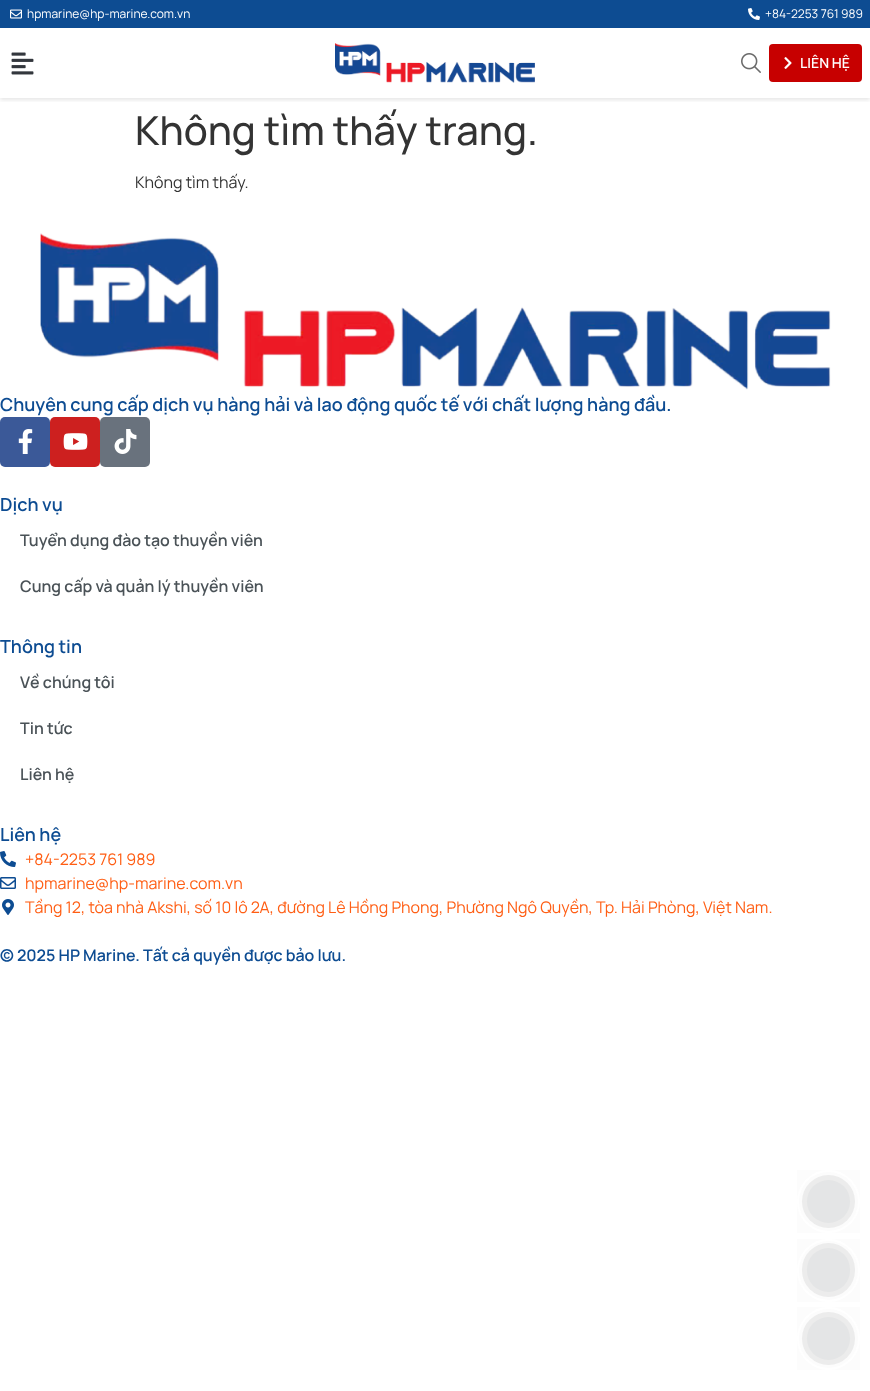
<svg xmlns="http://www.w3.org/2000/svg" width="870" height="1391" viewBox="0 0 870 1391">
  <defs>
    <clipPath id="clip1"><rect x="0" y="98" width="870" height="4"/></clipPath>
  </defs>
  <rect width="100%" height="100%" fill="rgb(255,255,255)"/>
  <rect x="0" y="0" width="870" height="28" fill="rgb(13,76,146)"/>
  <image x="10" y="9" width="12" height="10" href="pic1.png"/>
  <text x="27" y="18" font-family="Manrope" font-size="12" fill="rgb(255,255,255)">hpmarine@hp-marine.com.vn</text>
  <image x="748" y="8" width="12" height="12" href="pic2.png"/>
  <text x="765" y="18" font-family="Manrope" font-size="12" fill="rgb(255,255,255)">+84-2253 761 989</text>
  <g clip-path="url(#clip1)">
    <rect x="0" y="30" width="870" height="70" fill="rgba(0,0,0,0.1)" filter="blur(2px)"/>
  </g>
  <image x="11" y="52" width="23" height="23" href="pic3.png"/>
  <image x="335" y="43" width="200" height="40" href="pic4.png"/>
  <image x="741" y="53" width="20" height="20" href="pic5.png"/>
  <rect x="769" y="44" width="93" height="38" rx="4" fill="rgb(199,0,0)"/>
  <image x="784" y="57" width="8" height="12" href="pic6.png"/>
  <text x="800" y="68" font-family="Manrope" font-size="14" font-weight="600" fill="rgb(255,255,255)">LIÊN HỆ</text>
  <text x="135" y="145" font-family="Manrope" font-size="40" font-weight="500" fill="rgb(51,51,51)">Không tìm thấy trang.</text>
  <text x="135" y="188" font-family="Manrope" font-size="16" fill="rgb(51,51,51)">Không tìm thấy.</text>
  <image x="40" y="233" width="791" height="157" href="pic7.png"/>
  <text x="0" y="411" font-family="Manrope" font-size="18" font-weight="600" fill="rgb(13,76,146)">Chuyên cung cấp dịch vụ hàng hải và lao động quốc tế với chất lượng hàng đầu.</text>
  <rect x="0" y="417" width="50" height="50" rx="5" fill="rgb(59,89,152)"/>
  <image x="18" y="429" width="15" height="25" href="pic8.png"/>
  <rect x="50" y="417" width="50" height="50" rx="5" fill="rgb(205,32,31)"/>
  <image x="63" y="433" width="25" height="17" href="pic9.png"/>
  <rect x="100" y="417" width="50" height="50" rx="5" fill="rgb(105,114,125)"/>
  <image x="114" y="429" width="23" height="25" href="pic10.png"/>
  <text x="0" y="511" font-family="Manrope" font-size="18" font-weight="600" fill="rgb(13,76,146)">Dịch vụ</text>
  <g font-family="Manrope" font-size="16" font-weight="600" fill="rgb(74,82,87)">
    <text x="20" y="546">Tuyển dụng đào tạo thuyền viên</text>
    <text x="20" y="592">Cung cấp và quản lý thuyền viên</text>
  </g>
  <text x="0" y="653" font-family="Manrope" font-size="18" font-weight="600" fill="rgb(13,76,146)">Thông tin</text>
  <g font-family="Manrope" font-size="16" font-weight="600" fill="rgb(74,82,87)">
    <text x="20" y="688">Về chúng tôi</text>
    <text x="20" y="734">Tin tức</text>
    <text x="20" y="780">Liên hệ</text>
  </g>
  <text x="0" y="841" font-family="Manrope" font-size="18" font-weight="600" fill="rgb(13,76,146)">Liên hệ</text>
  <image x="0" y="851" width="16" height="16" href="pic11.png"/>
  <text x="25" y="865" font-family="Manrope" font-size="16" fill="rgb(255,94,20)">+84-2253 761 989</text>
  <image x="0" y="877" width="16" height="12" href="pic12.png"/>
  <text x="25" y="889" font-family="Manrope" font-size="16" fill="rgb(255,94,20)">hpmarine@hp-marine.com.vn</text>
  <image x="2" y="899" width="12" height="16" href="pic13.png"/>
  <text x="25" y="913" font-family="Manrope" font-size="16" fill="rgb(255,94,20)">Tầng 12, tòa nhà Akshi, số 10 lô 2A, đường Lê Hồng Phong, Phường Ngô Quyền, Tp. Hải Phòng, Việt Nam.</text>
  <text x="0" y="961" font-family="Manrope" font-size="16" font-weight="600" fill="rgb(13,76,146)">© 2025 HP Marine. Tất cả quyền được bảo lưu.</text>
  <circle cx="828.5" cy="1201.5" r="21.5" fill="rgb(241,243,244)"/>
  <circle cx="828.5" cy="1201.5" r="26.5" fill="rgba(218,218,218,0.42)"/>
  <rect x="797" y="1170" width="63" height="63" fill="rgba(166,166,166,0.03)"/>
  <circle cx="828.5" cy="1201.5" r="30.5" fill="none" stroke="rgb(255,255,255)" stroke-width="2"/>
  <rect x="807" y="1248" width="43" height="44" rx="21.5" fill="rgb(241,243,244)"/>
  <rect x="802" y="1243" width="53" height="54" rx="26.5" fill="rgba(218,218,218,0.42)"/>
  <rect x="797" y="1239" width="63" height="63" fill="rgba(166,166,166,0.03)"/>
  <circle cx="828.5" cy="1270.5" r="30.5" fill="none" stroke="rgb(255,255,255)" stroke-width="2"/>
  <circle cx="828.5" cy="1338.5" r="21.5" fill="rgb(241,243,244)"/>
  <circle cx="828.5" cy="1338.5" r="26.5" fill="rgba(218,218,218,0.42)"/>
  <rect x="797" y="1307" width="63" height="63" fill="rgba(166,166,166,0.03)"/>
  <circle cx="828.5" cy="1338.5" r="30.5" fill="none" stroke="rgb(255,255,255)" stroke-width="2"/>
</svg>
